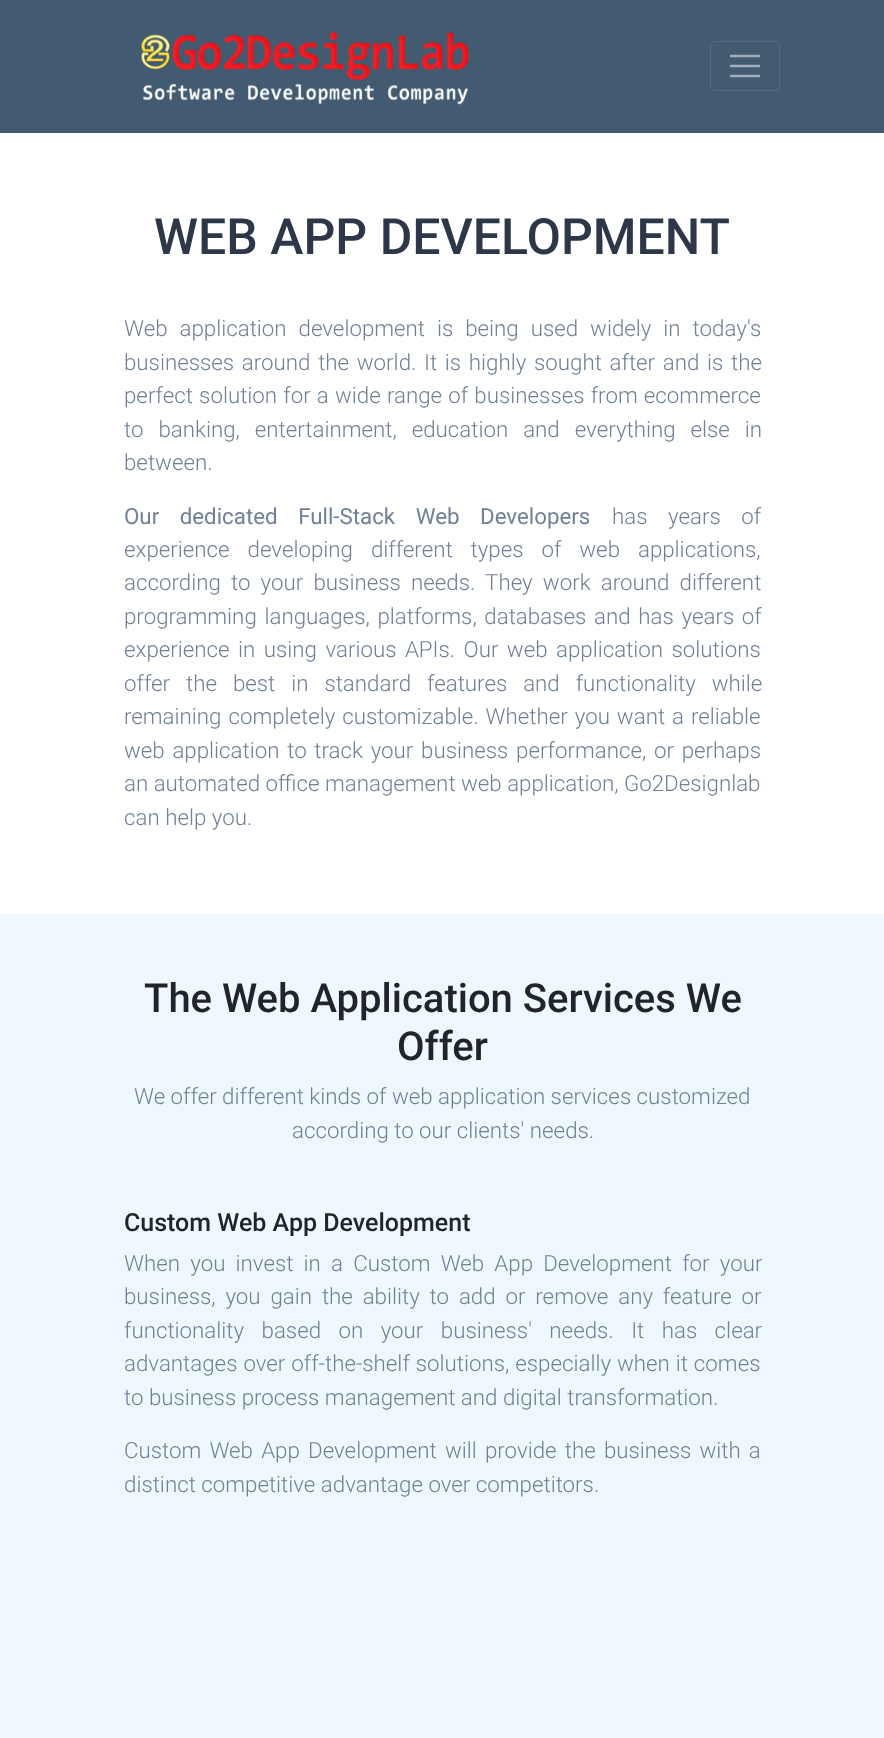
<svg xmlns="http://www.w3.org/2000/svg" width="884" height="1738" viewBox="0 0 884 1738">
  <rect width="100%" height="100%" fill="rgb(255,255,255)"/>
  <rect x="0" y="0" width="884" height="133" fill="rgb(66,91,112)"/>
  <image x="141" y="31" width="328" height="74" href="pic1.png"/>
  <rect x="710.5" y="41.5" width="69" height="49" rx="4.5" fill="none" stroke="rgb(85,107,126)"/>
  <path d="M731 56H759M731 66H759M731 76H759" fill="none" stroke="rgb(161,173,184)" stroke-width="2.5" stroke-linecap="round"/>
  <text x="154" y="254" font-family="Roboto" font-size="50" font-weight="500" fill="rgb(45,55,72)">WEB APP DEVELOPMENT</text>
  <g font-family="Roboto" font-size="22.3" font-weight="300" fill="rgb(113,128,150)">
    <text>
      <tspan x="124" y="336" word-spacing="6.5">Web application development is being used widely in today's</tspan>
      <tspan x="124" y="370" word-spacing="2.25">businesses around the world. It is highly sought after and is the</tspan>
      <tspan x="124" y="403" word-spacing="0.75">perfect solution for a wide range of businesses from ecommerce</tspan>
      <tspan x="124" y="437" word-spacing="9.5">to banking, entertainment, education and everything else in</tspan>
      <tspan x="124" y="470">between.</tspan>
    </text>
  </g>
  <text x="124" y="524" word-spacing="15" font-family="Roboto" font-size="22.3" fill="rgb(113,128,150)">Our dedicated Full-Stack Web Developers</text>
  <g font-family="Roboto" font-size="22.3" font-weight="300" fill="rgb(113,128,150)">
    <text x="612" y="524" word-spacing="15">has years of</text>
    <text>
      <tspan x="124" y="557" word-spacing="12.5">experience developing different types of web applications,</tspan>
      <tspan x="124" y="590" word-spacing="4.75">according to your business needs. They work around different</tspan>
      <tspan x="124" y="624" word-spacing="2.25">programming languages, platforms, databases and has years of</tspan>
      <tspan x="124" y="657" word-spacing="3">experience in using various APIs. Our web application solutions</tspan>
      <tspan x="124" y="691" word-spacing="10.5">offer the best in standard features and functionality while</tspan>
      <tspan x="124" y="724" word-spacing="1.5">remaining completely customizable. Whether you want a reliable</tspan>
      <tspan x="124" y="758" word-spacing="2.25">web application to track your business performance, or perhaps</tspan>
      <tspan x="124" y="791">an automated office management web application, Go2Designlab</tspan>
      <tspan x="124" y="825">can help you.</tspan>
    </text>
  </g>
  <rect x="0" y="914" width="884" height="824" fill="rgb(240,248,255)"/>
  <g font-family="Roboto" font-size="40" font-weight="500" fill="rgb(33,37,41)">
    <text x="144" y="1012">The Web Application Services We</text>
    <text x="397" y="1060">Offer</text>
  </g>
  <g font-family="Roboto" font-size="22.3" font-weight="300" fill="rgb(113,128,150)">
    <text x="134" y="1104">We offer different kinds of web application services customized</text>
    <text x="292" y="1138">according to our clients' needs.</text>
  </g>
  <text x="124" y="1231" font-family="Roboto" font-size="25" font-weight="500" fill="rgb(33,37,41)">Custom Web App Development</text>
  <g font-family="Roboto" font-size="22.3" font-weight="300" fill="rgb(113,128,150)">
    <text>
      <tspan x="124" y="1271" word-spacing="4.75">When you invest in a Custom Web App Development for your</tspan>
      <tspan x="124" y="1304" word-spacing="4.4">business, you gain the ability to add or remove any feature or</tspan>
      <tspan x="124" y="1338" word-spacing="12">functionality based on your business' needs. It has clear</tspan>
      <tspan x="124" y="1371" word-spacing="0.5">advantages over off-the-shelf solutions, especially when it comes</tspan>
      <tspan x="124" y="1405">to business process management and digital transformation.</tspan>
    </text>
    <text>
      <tspan x="124" y="1458" word-spacing="2.75">Custom Web App Development will provide the business with a</tspan>
      <tspan x="124" y="1492">distinct competitive advantage over competitors.</tspan>
    </text>
  </g>
</svg>
